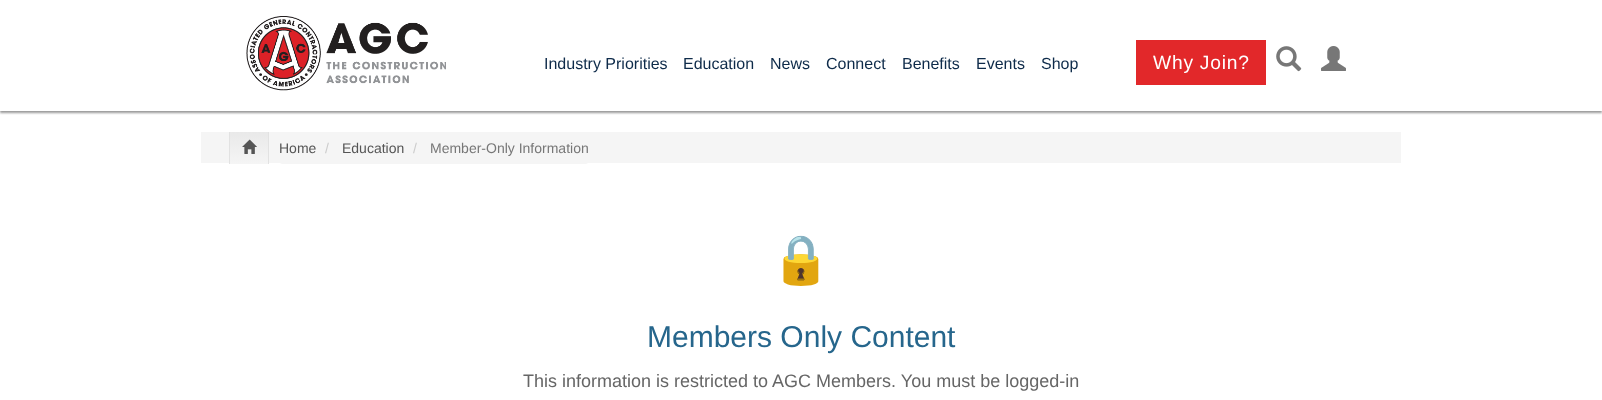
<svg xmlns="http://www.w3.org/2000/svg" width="1602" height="400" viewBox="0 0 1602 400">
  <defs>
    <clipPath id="clip1"><rect x="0" y="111" width="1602" height="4"/></clipPath>
    <linearGradient id="g1" gradientUnits="userSpaceOnUse" x1="249" y1="132" x2="249" y2="164"><stop offset="0" stop-color="rgb(233,233,233)"/><stop offset="1" stop-color="rgb(245,245,245)"/></linearGradient>
  </defs>
  <rect width="100%" height="100%" fill="rgb(255,255,255)"/>
  <g clip-path="url(#clip1)">
    <rect x="0" y="17" width="1602" height="96" fill="rgb(153,153,153)" filter="blur(1px)"/>
  </g>
  <image x="246" y="16" width="200" height="75" href="pic1.png"/>
  <g font-family="Liberation Sans" font-size="16" fill="rgb(14,43,74)">
    <text x="544" y="69">Industry Priorities</text>
    <text x="683" y="69">Education</text>
    <text x="770" y="69">News</text>
    <text x="826" y="69">Connect</text>
    <text x="902" y="69">Benefits</text>
    <text x="976" y="69">Events</text>
    <text x="1041" y="69">Shop</text>
  </g>
  <rect x="1136" y="40" width="130" height="45" fill="rgb(226,40,42)"/>
  <text x="1153" y="69" font-family="Liberation Sans" font-size="19.25" letter-spacing="0.75" fill="rgb(255,255,255)">Why Join?</text>
  <image x="1276" y="46" width="26" height="26" href="pic2.png"/>
  <image x="1321" y="46" width="25" height="25" href="pic3.png"/>
  <rect x="201" y="132" width="1200" height="31" fill="rgb(245,245,245)"/>
  <rect x="230" y="132" width="38" height="32" fill="url(#g1)"/>
  <rect x="268" y="132" width="1" height="32" fill="rgb(226,226,226)"/>
  <rect x="229" y="132" width="1" height="32" fill="rgb(226,226,226)"/>
  <image x="242" y="139" width="15" height="15" href="pic4.png"/>
  <rect x="279" y="132" width="310" height="32" rx="4" fill="rgb(245,245,245)"/>
  <text x="279" y="153" font-family="Liberation Sans" font-size="14" fill="rgb(85,85,85)">Home</text>
  <text x="325" y="153" font-family="Liberation Sans" font-size="14" fill="rgb(204,204,204)">/</text>
  <text x="342" y="153" font-family="Liberation Sans" font-size="14" fill="rgb(85,85,85)">Education</text>
  <text x="413" y="153" font-family="Liberation Sans" font-size="14" fill="rgb(204,204,204)">/</text>
  <text x="430" y="153" font-family="Liberation Sans" font-size="14" fill="rgb(119,119,119)">Member-Only Information</text>
  <text x="771" y="276" font-family="Noto Color Emoji" font-size="48" fill="rgb(217,83,79)">🔒</text>
  <text x="647" y="347" font-family="Liberation Sans" font-size="30" fill="rgb(38,102,140)">Members Only Content</text>
  <text x="523" y="387" font-family="Liberation Sans" font-size="18" fill="rgb(102,102,102)">This information is restricted to AGC Members. You must be logged-in</text>
</svg>
